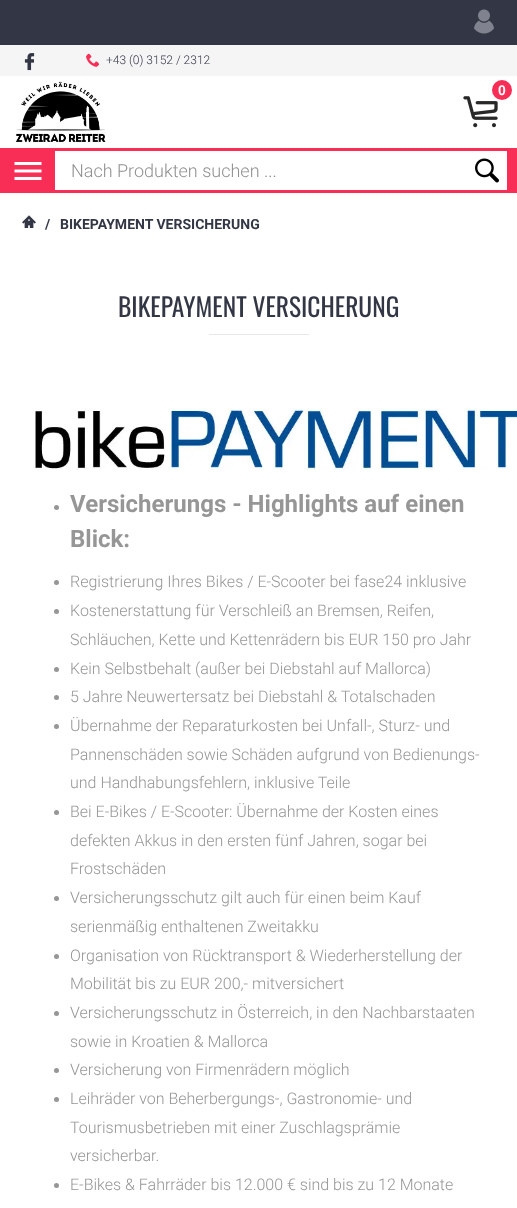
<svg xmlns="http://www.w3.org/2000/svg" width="517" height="1208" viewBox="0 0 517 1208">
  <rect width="100%" height="100%" fill="rgb(255,255,255)"/>
  <rect x="0" y="45" width="517" height="31" fill="rgb(245,245,246)"/>
  <rect x="0" y="0" width="517" height="45" fill="rgb(51,55,69)"/>
  <image x="24" y="53" width="11" height="18" href="pic1.png"/>
  <image x="86" y="53" width="14" height="14" href="pic2.png"/>
  <text x="106" y="64" font-family="Roboto" font-size="12" font-weight="300" fill="rgb(51,55,69)">+43 (0) 3152 / 2312</text>
  <image x="15" y="81" width="91" height="62" href="pic3.png"/>
  <image x="474" y="9" width="20" height="25" href="pic4.png"/>
  <image x="463" y="96" width="35" height="32" href="pic5.png"/>
  <circle cx="502" cy="90" r="10" fill="rgb(248,46,86)"/>
  <text x="498" y="95" font-family="Liberation Sans" font-size="14" font-weight="bold" fill="rgb(255,255,255)">0</text>
  <rect x="0" y="148" width="517" height="45" fill="rgb(248,46,86)"/>
  <rect x="55" y="151" width="452" height="39" fill="rgb(255,255,255)"/>
  <text x="71" y="177" font-family="Roboto" font-size="18" font-weight="300" fill="rgb(143,143,143)">Nach Produkten suchen ...</text>
  <image x="475" y="158" width="24" height="25" href="pic6.png"/>
  <image x="14" y="162" width="28" height="18" href="pic7.png"/>
  <image x="22" y="215" width="14" height="13" href="pic8.png"/>
  <g font-family="Roboto" font-size="14" font-weight="bold" fill="rgb(51,55,69)">
    <text x="45" y="229">/</text>
    <text x="60" y="229">BIKEPAYMENT VERSICHERUNG</text>
  </g>
  <text x="118" y="317" font-family="Oswald" font-size="25.5" fill="rgb(51,55,69)">BIKEPAYMENT VERSICHERUNG</text>
  <rect x="209" y="334" width="100" height="1" fill="rgb(232,232,232)"/>
  <image x="35" y="408" width="482" height="62" href="pic9.png"/>
  <circle cx="56.5" cy="507.5" r="2.5" fill="rgb(150,150,150)"/>
  <g font-family="Roboto" font-size="24" font-weight="bold" fill="rgb(150,150,150)">
    <text>
      <tspan x="70" y="512">Versicherungs - Highlights auf einen</tspan>
      <tspan x="70" y="547">Blick:</tspan>
    </text>
  </g>
  <circle cx="56.5" cy="582.5" r="2.5" fill="rgb(150,150,150)"/>
  <text x="70" y="587" font-family="Roboto" font-size="16" font-weight="300" fill="rgb(150,150,150)">Registrierung Ihres Bikes / E-Scooter bei fase24 inklusive</text>
  <circle cx="56.5" cy="611.5" r="2.5" fill="rgb(150,150,150)"/>
  <g font-family="Roboto" font-size="16" font-weight="300" fill="rgb(150,150,150)">
    <text>
      <tspan x="70" y="616">Kostenerstattung für Verschleiß an Bremsen, Reifen,</tspan>
      <tspan x="70" y="645">Schläuchen, Kette und Kettenrädern bis EUR 150 pro Jahr</tspan>
    </text>
  </g>
  <circle cx="56.5" cy="669.5" r="2.5" fill="rgb(150,150,150)"/>
  <text x="70" y="674" font-family="Roboto" font-size="16" font-weight="300" fill="rgb(150,150,150)">Kein Selbstbehalt (außer bei Diebstahl auf Mallorca)</text>
  <circle cx="56.5" cy="697.5" r="2.5" fill="rgb(150,150,150)"/>
  <text x="70" y="702" font-family="Roboto" font-size="16" font-weight="300" fill="rgb(150,150,150)">5 Jahre Neuwertersatz bei Diebstahl &amp; Totalschaden</text>
  <circle cx="56.5" cy="726.5" r="2.5" fill="rgb(150,150,150)"/>
  <g font-family="Roboto" font-size="16" font-weight="300" fill="rgb(150,150,150)">
    <text>
      <tspan x="70" y="731">Übernahme der Reparaturkosten bei Unfall-, Sturz- und</tspan>
      <tspan x="70" y="760">Pannenschäden sowie Schäden aufgrund von Bedienungs-</tspan>
      <tspan x="70" y="788">und Handhabungsfehlern, inklusive Teile</tspan>
    </text>
  </g>
  <circle cx="56.5" cy="812.5" r="2.5" fill="rgb(150,150,150)"/>
  <g font-family="Roboto" font-size="16" font-weight="300" fill="rgb(150,150,150)">
    <text>
      <tspan x="70" y="817">Bei E-Bikes / E-Scooter: Übernahme der Kosten eines</tspan>
      <tspan x="70" y="846">defekten Akkus in den ersten fünf Jahren, sogar bei</tspan>
      <tspan x="70" y="874">Frostschäden</tspan>
    </text>
  </g>
  <circle cx="56.5" cy="898.5" r="2.5" fill="rgb(150,150,150)"/>
  <g font-family="Roboto" font-size="16" font-weight="300" fill="rgb(150,150,150)">
    <text>
      <tspan x="70" y="903">Versicherungsschutz gilt auch für einen beim Kauf</tspan>
      <tspan x="70" y="932">serienmäßig enthaltenen Zweitakku</tspan>
    </text>
  </g>
  <circle cx="56.5" cy="956.5" r="2.5" fill="rgb(150,150,150)"/>
  <g font-family="Roboto" font-size="16" font-weight="300" fill="rgb(150,150,150)">
    <text>
      <tspan x="70" y="961">Organisation von Rücktransport &amp; Wiederherstellung der</tspan>
      <tspan x="70" y="989">Mobilität bis zu EUR 200,- mitversichert</tspan>
    </text>
  </g>
  <circle cx="56.5" cy="1013.5" r="2.5" fill="rgb(150,150,150)"/>
  <g font-family="Roboto" font-size="16" font-weight="300" fill="rgb(150,150,150)">
    <text>
      <tspan x="70" y="1018">Versicherungsschutz in Österreich, in den Nachbarstaaten</tspan>
      <tspan x="70" y="1047">sowie in Kroatien &amp; Mallorca</tspan>
    </text>
  </g>
  <circle cx="56.5" cy="1070.5" r="2.5" fill="rgb(150,150,150)"/>
  <text x="70" y="1075" font-family="Roboto" font-size="16" font-weight="300" fill="rgb(150,150,150)">Versicherung von Firmenrädern möglich</text>
  <circle cx="56.5" cy="1099.5" r="2.5" fill="rgb(150,150,150)"/>
  <g font-family="Roboto" font-size="16" font-weight="300" fill="rgb(150,150,150)">
    <text>
      <tspan x="70" y="1104">Leihräder von Beherbergungs-, Gastronomie- und</tspan>
      <tspan x="70" y="1133">Tourismusbetrieben mit einer Zuschlagsprämie</tspan>
      <tspan x="70" y="1161">versicherbar.</tspan>
    </text>
  </g>
  <circle cx="56.5" cy="1185.5" r="2.5" fill="rgb(150,150,150)"/>
  <text x="70" y="1190" font-family="Roboto" font-size="16" font-weight="300" fill="rgb(150,150,150)">E-Bikes &amp; Fahrräder bis 12.000 € sind bis zu 12 Monate</text>
</svg>
